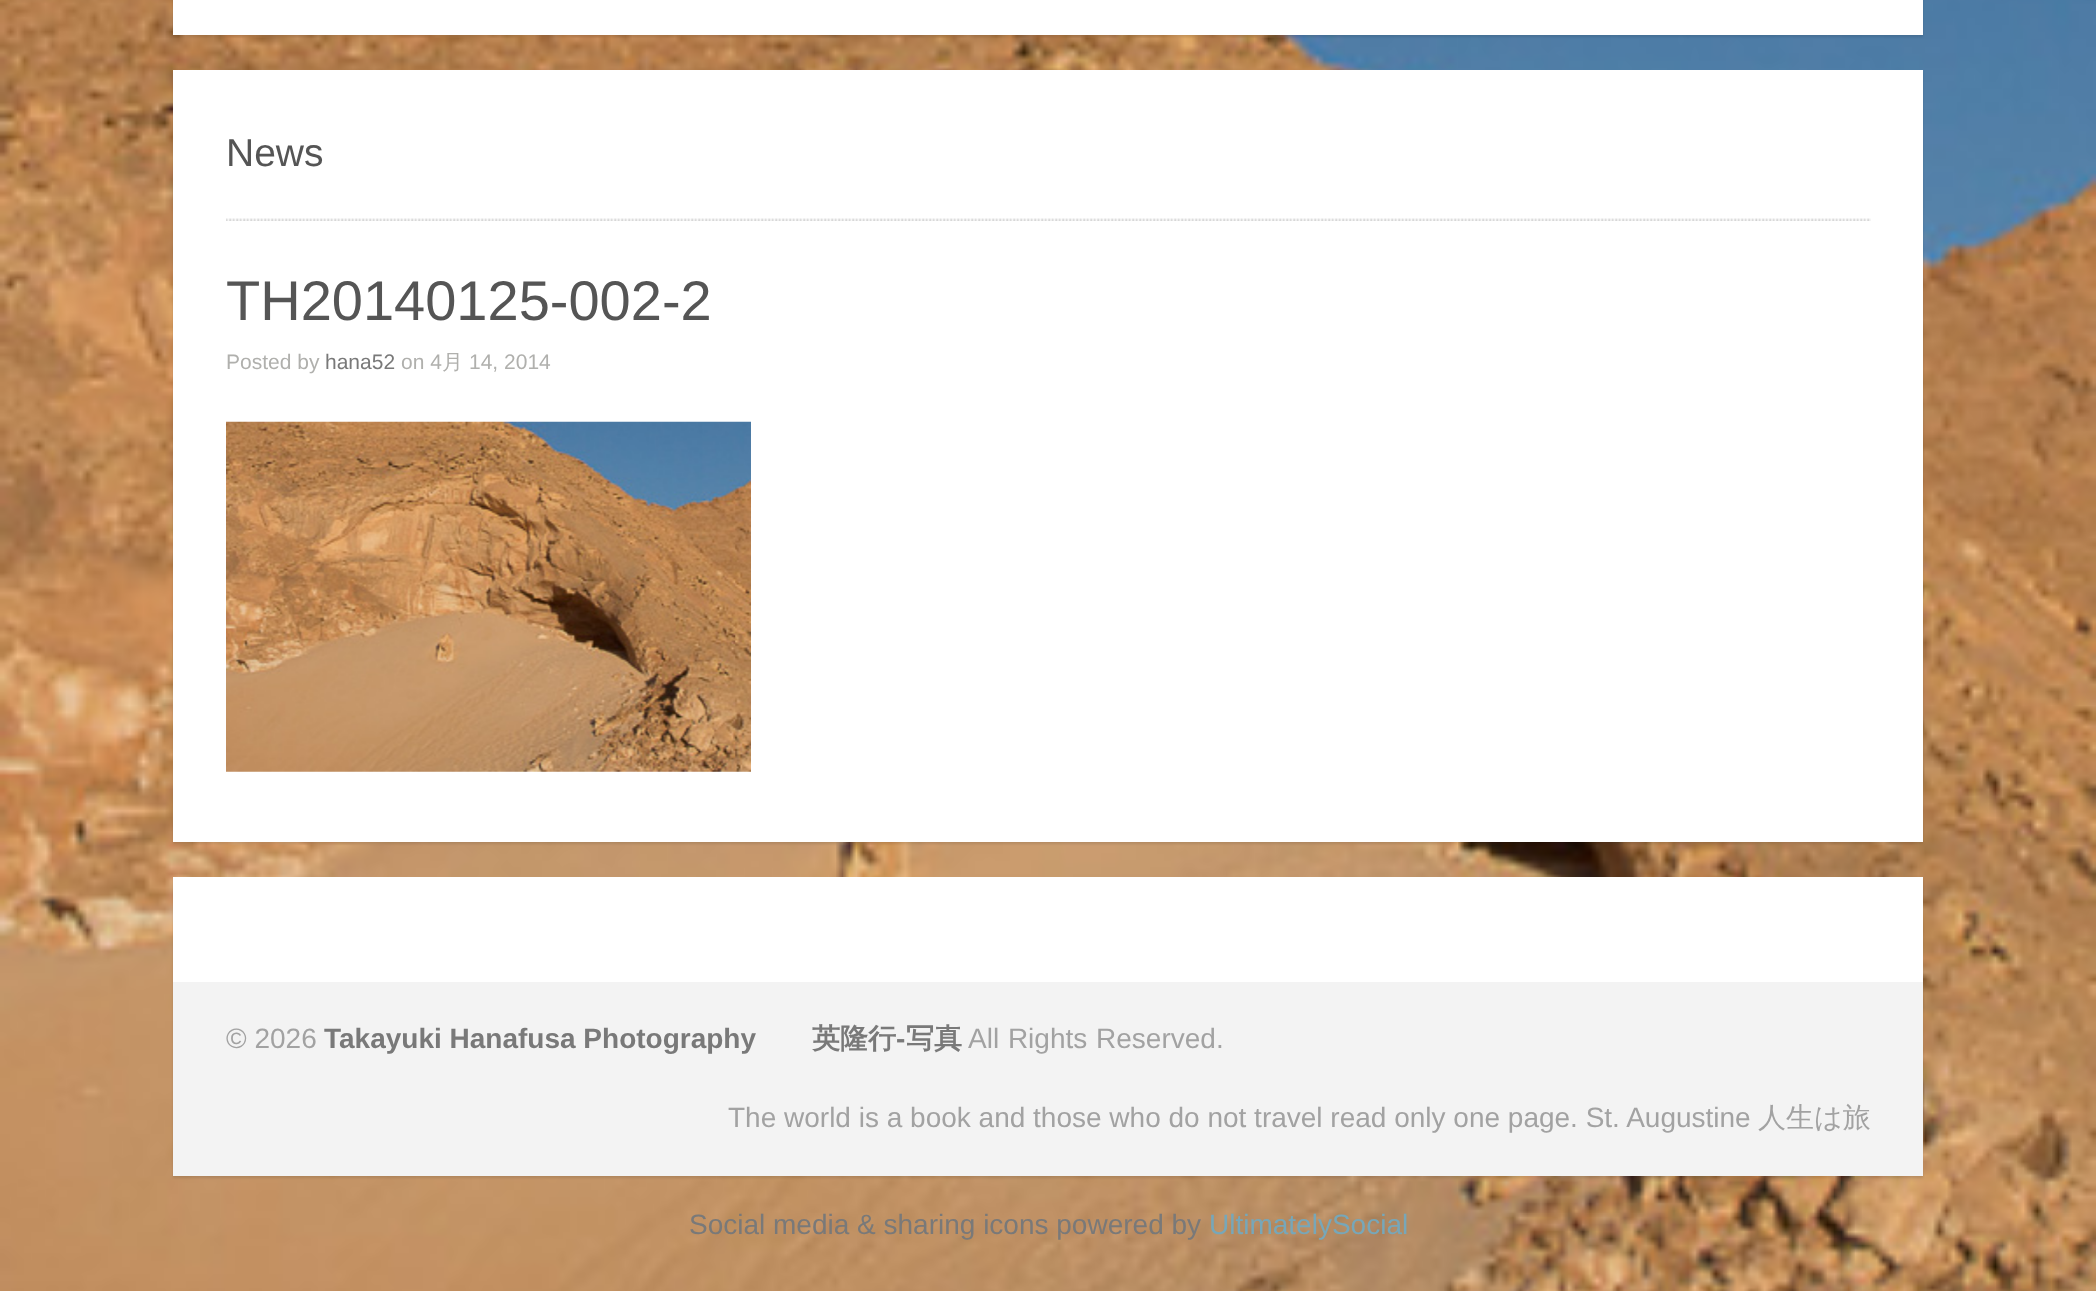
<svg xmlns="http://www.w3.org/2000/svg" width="2096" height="1291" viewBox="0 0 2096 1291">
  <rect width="100%" height="100%" fill="rgb(255,255,255)"/>
  <image x="0" y="0" width="2096" height="1291" href="pic1.png"/>
  <rect x="173" y="-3" width="1750" height="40" fill="rgba(0,0,0,0.1)" filter="blur(1px)"/>
  <rect x="173" y="0" width="1750" height="35" fill="rgb(255,255,255)"/>
  <rect x="173" y="72" width="1750" height="772" fill="rgba(0,0,0,0.1)" filter="blur(1px)"/>
  <rect x="173" y="70" width="1750" height="772" fill="rgb(255,255,255)"/>
  <image x="226" y="218" width="1645" height="3" href="pic2.png"/>
  <text x="226" y="166" font-family="Liberation Sans" font-size="39" fill="rgb(85,85,85)">News</text>
  <text x="226" y="320" font-family="Liberation Sans" font-size="56" fill="rgb(85,85,85)">TH20140125-002-2</text>
  <text x="226" y="369" font-family="Liberation Sans" font-size="21" fill="rgb(176,176,173)">Posted by</text>
  <text x="325" y="369" font-family="Liberation Sans" font-size="21" fill="rgb(121,121,121)">hana52</text>
  <text x="401" y="369" font-family="Liberation Sans" font-size="21" fill="rgb(176,176,173)">on 4</text>
  <text x="442" y="369" font-family="WenQuanYi Zen Hei" font-size="21" font-weight="500" fill="rgb(176,176,173)">月</text>
  <text x="469" y="369" font-family="Liberation Sans" font-size="21" fill="rgb(176,176,173)">14, 2014</text>
  <image x="226" y="421" width="525" height="351" href="pic3.png"/>
  <rect x="173" y="879" width="1750" height="299" fill="rgba(0,0,0,0.1)" filter="blur(1px)"/>
  <rect x="173" y="877" width="1750" height="105" fill="rgb(255,255,255)"/>
  <rect x="173" y="982" width="1750" height="194" fill="rgb(243,243,243)"/>
  <text x="226" y="1048" font-family="Liberation Sans" font-size="28" fill="rgb(162,162,162)">© 2026</text>
  <text x="324" y="1048" font-family="Liberation Sans" font-size="28" font-weight="bold" fill="rgb(121,121,121)">Takayuki Hanafusa Photography</text>
  <text x="812" y="1048" font-family="WenQuanYi Zen Hei" font-size="28" font-weight="bold" fill="rgb(121,121,121)">英隆行</text>
  <text x="896" y="1048" font-family="Liberation Sans" font-size="28" font-weight="bold" fill="rgb(121,121,121)">-</text>
  <text x="906" y="1048" font-family="WenQuanYi Zen Hei" font-size="28" font-weight="bold" fill="rgb(121,121,121)">写真</text>
  <g font-family="Liberation Sans" font-size="28" fill="rgb(162,162,162)">
    <text x="968" y="1048" word-spacing="1">All Rights Reserved.</text>
    <text x="728" y="1127">The world is a book and those who do not travel read only one page. St. Augustine</text>
  </g>
  <text x="1758" y="1127" font-family="WenQuanYi Zen Hei" font-size="28" font-weight="500" fill="rgb(162,162,162)">人生は旅</text>
  <text x="689" y="1234" font-family="Liberation Sans" font-size="28" fill="rgb(121,121,121)">Social media &amp; sharing icons powered by</text>
  <text x="1209" y="1234" font-family="Liberation Sans" font-size="28" fill="rgb(119,167,185)">UltimatelySocial</text>
</svg>
